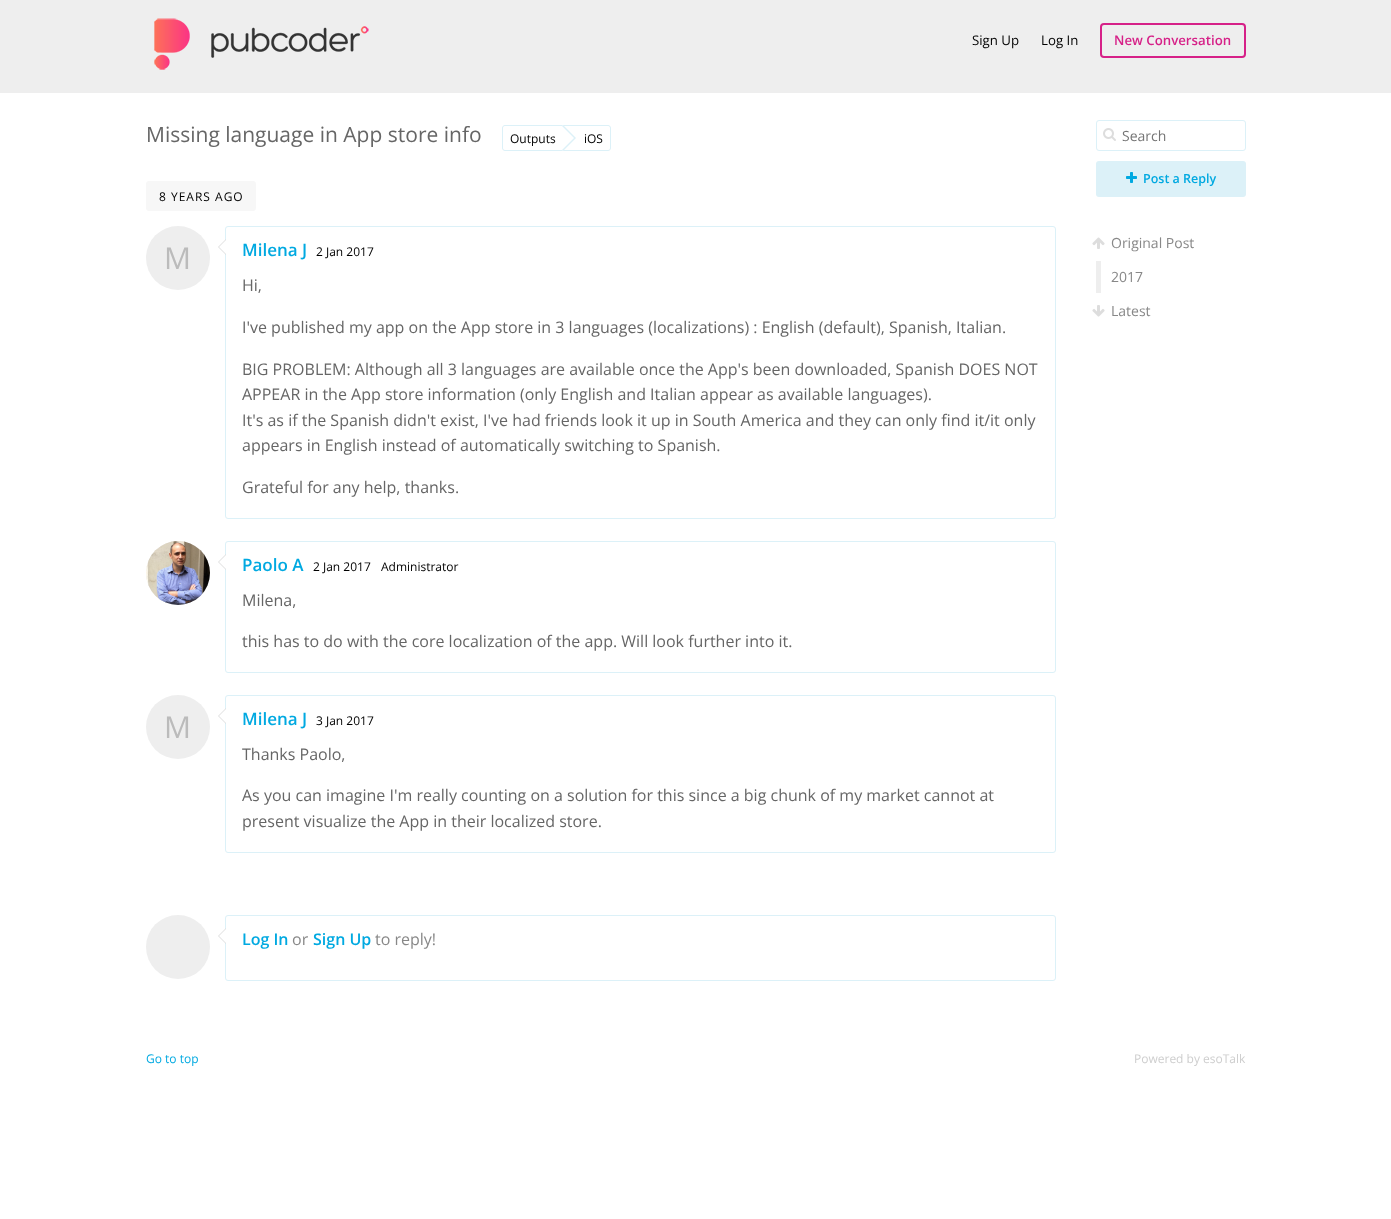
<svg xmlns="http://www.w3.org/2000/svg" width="1391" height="1219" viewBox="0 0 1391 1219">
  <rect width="100%" height="100%" fill="rgb(255,255,255)"/>
  <rect x="0" y="0" width="1391" height="93" fill="rgb(238,238,238)"/>
  <image x="154" y="18" width="215" height="52" href="pic1.png"/>
  <g font-family="Open Sans" font-size="13.25" fill="rgb(0,0,0)">
    <text x="972" y="45">Sign Up</text>
    <text x="1041" y="45">Log In</text>
  </g>
  <rect x="1101" y="24" width="144" height="33" rx="3" fill="none" stroke="rgb(214,33,136)" stroke-width="2"/>
  <text x="1114" y="45" font-family="Open Sans" font-size="13.25" font-weight="600" fill="rgb(214,33,136)">New Conversation</text>
  <text x="146" y="142" font-family="Open Sans" font-size="21" fill="rgb(102,102,102)">Missing language in App store info</text>
  <path d="M505 125.5H562.5V150.5H505C503.5 150.5 502.5 149.5 502.5 148V128C502.5 126.5 503.5 125.5 505 125.5Z" fill="none" stroke="rgb(220,241,248)"/>
  <path d="M563.5 125.5H608C609.5 125.5 610.5 126.5 610.5 128V148C610.5 149.5 609.5 150.5 608 150.5H563.5Z" fill="none" stroke="rgb(220,241,248)"/>
  <path d="M563 151V125L576 138Z" fill="rgb(220,241,248)"/>
  <text x="510" y="143" font-family="Open Sans" font-size="12" fill="rgb(0,0,0)">Outputs</text>
  <path d="M562 150V126L574 138Z" fill="rgb(255,255,255)"/>
  <text x="584" y="143" font-family="Open Sans" font-size="12" fill="rgb(0,0,0)">iOS</text>
  <rect x="1096.5" y="120.5" width="149" height="30" rx="2.5" fill="none" stroke="rgb(220,241,248)"/>
  <image x="1103" y="128" width="13" height="13" href="pic2.png"/>
  <text x="1122" y="141" font-family="Open Sans" font-size="14" fill="rgb(117,117,117)">Search</text>
  <rect x="1096" y="161" width="150" height="36" rx="3" fill="rgb(220,241,248)"/>
  <image x="1126" y="172" width="11" height="11" href="pic3.png"/>
  <text x="1143" y="183" font-family="Open Sans" font-size="12.5" font-weight="600" fill="rgb(0,169,225)">Post a Reply</text>
  <image x="1092" y="237" width="13" height="12" href="pic4.png"/>
  <text x="1111" y="248" font-family="Open Sans" font-size="14" fill="rgb(136,136,136)">Original Post</text>
  <rect x="1096" y="261" width="5" height="32" fill="rgb(238,238,238)"/>
  <text x="1111" y="282" font-family="Open Sans" font-size="14" fill="rgb(136,136,136)">2017</text>
  <image x="1092" y="305" width="13" height="12" href="pic5.png"/>
  <text x="1111" y="316" font-family="Open Sans" font-size="14" fill="rgb(136,136,136)">Latest</text>
  <rect x="146" y="181" width="110" height="30" rx="3" fill="rgb(247,247,247)"/>
  <text x="159" y="201" font-family="Open Sans" font-size="12" letter-spacing="1" fill="rgb(0,0,0)">8 YEARS AGO</text>
  <circle cx="178" cy="258" r="32" fill="rgb(238,238,238)"/>
  <text x="164" y="269" font-family="Open Sans" font-size="30" fill="rgb(187,187,187)">M</text>
  <rect x="225.5" y="226.5" width="830" height="292" rx="2.5" fill="none" stroke="rgb(220,241,248)"/>
  <path d="M226 239V255L218 247Z" fill="rgb(221,221,221)"/>
  <path d="M227 239V255L219 247Z" fill="rgb(255,255,255)"/>
  <text x="242" y="256" font-family="Open Sans" font-size="17" font-weight="600" fill="rgb(0,169,225)">Milena J</text>
  <text x="316" y="256" font-family="Open Sans" font-size="12" fill="rgb(0,0,0)">2 Jan 2017</text>
  <g font-family="Open Sans" font-size="16" fill="rgb(102,102,102)">
    <text x="242" y="291">Hi,</text>
    <text x="242" y="333">I've published my app on the App store in 3 languages (localizations) : English (default), Spanish, Italian.</text>
    <text>
      <tspan x="242" y="375">BIG PROBLEM: Although all 3 languages are available once the App's been downloaded, Spanish DOES NOT</tspan>
      <tspan x="242" y="400">APPEAR in the App store information (only English and Italian appear as available languages).</tspan>
      <tspan x="242" y="426">It's as if the Spanish didn't exist, I've had friends look it up in South America and they can only find it/it only</tspan>
      <tspan x="242" y="451">appears in English instead of automatically switching to Spanish.</tspan>
    </text>
    <text x="242" y="493">Grateful for any help, thanks.</text>
  </g>
  <circle cx="178" cy="573" r="32" fill="rgb(238,238,238)"/>
  <image x="146" y="541" width="64" height="64" href="pic6.png"/>
  <rect x="225.5" y="541.5" width="830" height="131" rx="2.5" fill="none" stroke="rgb(220,241,248)"/>
  <path d="M226 554V570L218 562Z" fill="rgb(221,221,221)"/>
  <path d="M227 554V570L219 562Z" fill="rgb(255,255,255)"/>
  <text x="242" y="571" font-family="Open Sans" font-size="17" font-weight="600" fill="rgb(0,169,225)">Paolo A</text>
  <g font-family="Open Sans" font-size="12" fill="rgb(0,0,0)">
    <text x="313" y="571">2 Jan 2017</text>
    <text x="381" y="571">Administrator</text>
  </g>
  <g font-family="Open Sans" font-size="16" fill="rgb(102,102,102)">
    <text x="242" y="606">Milena,</text>
    <text x="242" y="647">this has to do with the core localization of the app. Will look further into it.</text>
  </g>
  <circle cx="178" cy="727" r="32" fill="rgb(238,238,238)"/>
  <text x="164" y="738" font-family="Open Sans" font-size="30" fill="rgb(187,187,187)">M</text>
  <rect x="225.5" y="695.5" width="830" height="157" rx="2.5" fill="none" stroke="rgb(220,241,248)"/>
  <path d="M226 708V724L218 716Z" fill="rgb(221,221,221)"/>
  <path d="M227 708V724L219 716Z" fill="rgb(255,255,255)"/>
  <text x="242" y="725" font-family="Open Sans" font-size="17" font-weight="600" fill="rgb(0,169,225)">Milena J</text>
  <text x="316" y="725" font-family="Open Sans" font-size="12" fill="rgb(0,0,0)">3 Jan 2017</text>
  <g font-family="Open Sans" font-size="16" fill="rgb(102,102,102)">
    <text x="242" y="760">Thanks Paolo,</text>
    <text>
      <tspan x="242" y="801">As you can imagine I'm really counting on a solution for this since a big chunk of my market cannot at</tspan>
      <tspan x="242" y="827">present visualize the App in their localized store.</tspan>
    </text>
  </g>
  <circle cx="178" cy="947" r="32" fill="rgb(238,238,238)"/>
  <rect x="225.5" y="915.5" width="830" height="65" rx="2.5" fill="none" stroke="rgb(220,241,248)"/>
  <path d="M226 928V944L218 936Z" fill="rgb(221,221,221)"/>
  <path d="M227 928V944L219 936Z" fill="rgb(255,255,255)"/>
  <text x="242" y="945" font-family="Open Sans" font-size="16" font-weight="600" fill="rgb(0,169,225)">Log In</text>
  <text x="292" y="945" font-family="Open Sans" font-size="16" fill="rgb(136,136,136)">or</text>
  <text x="313" y="945" font-family="Open Sans" font-size="16" font-weight="600" fill="rgb(0,169,225)">Sign Up</text>
  <text x="375" y="945" font-family="Open Sans" font-size="16" fill="rgb(136,136,136)">to reply!</text>
  <text x="146" y="1063" font-family="Open Sans" font-size="12" fill="rgb(0,169,225)">Go to top</text>
  <text x="1134" y="1063" font-family="Open Sans" font-size="12" fill="rgb(206,206,206)">Powered by esoTalk</text>
</svg>
